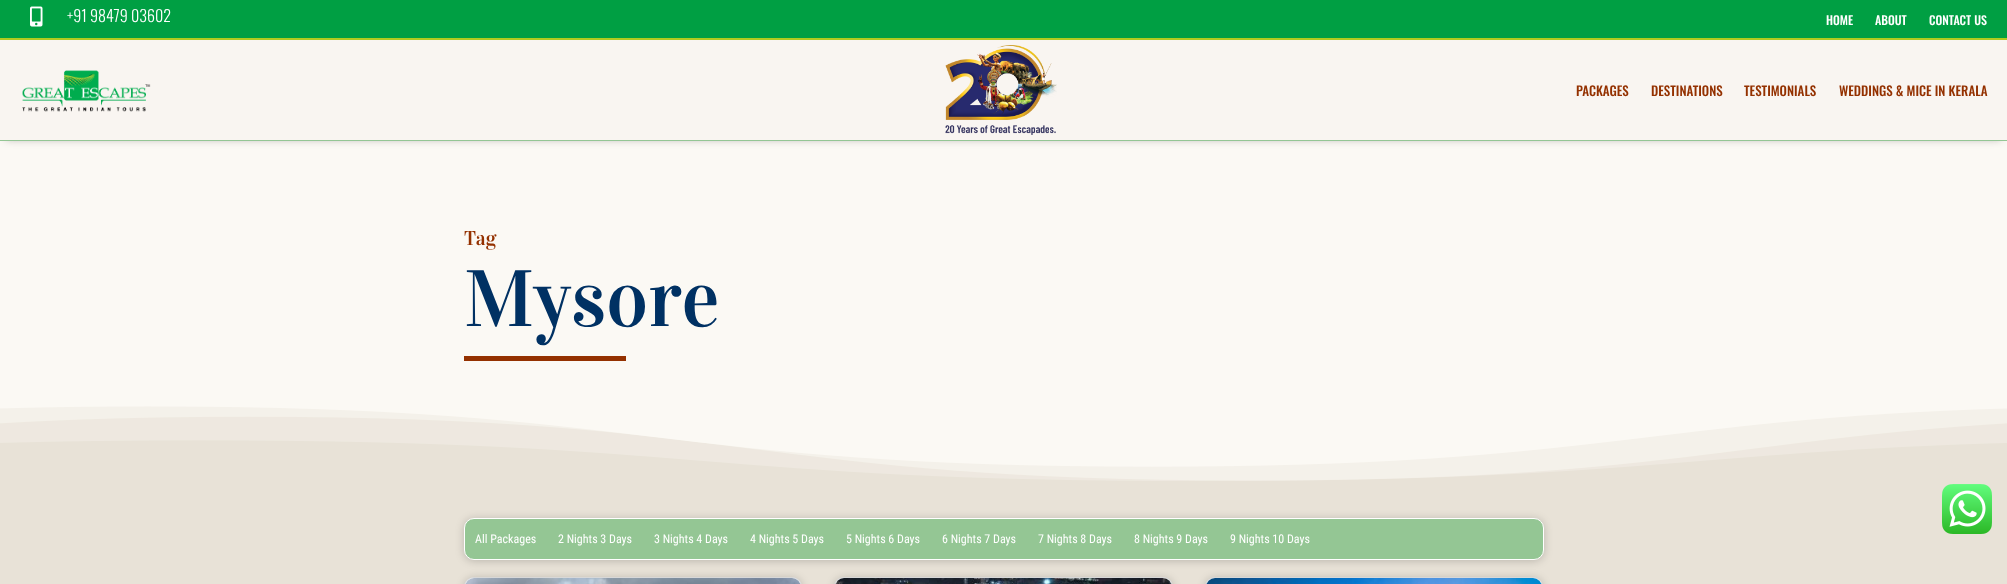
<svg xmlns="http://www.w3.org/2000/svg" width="2007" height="584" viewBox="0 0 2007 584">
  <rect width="100%" height="100%" fill="rgb(251,249,244)"/>
  <rect x="0" y="0" width="2007" height="38" fill="rgb(0,159,67)"/>
  <rect x="0" y="38" width="2007" height="2" fill="rgb(176,203,31)"/>
  <image x="30" y="6" width="13" height="21" href="pic1.png"/>
  <text x="67" y="22" font-family="Oswald" font-size="16" font-weight="300" fill="rgb(255,255,255)">+91 98479 03602</text>
  <g font-family="Oswald" font-size="12" font-weight="500" fill="rgb(255,255,255)">
    <text x="1826" y="25">HOME</text>
    <text x="1875" y="25">ABOUT</text>
    <text x="1929" y="25">CONTACT US</text>
  </g>
  <rect x="6" y="50" width="1995" height="89" fill="rgba(0,0,0,0.3)" filter="blur(4.5px)"/>
  <rect x="0" y="40" width="2007" height="100" fill="rgb(249,245,241)"/>
  <rect x="0" y="140" width="2007" height="1" fill="rgb(148,198,148)"/>
  <image x="22" y="70" width="129" height="42" href="pic2.png"/>
  <image x="945" y="45" width="112" height="90" href="pic3.png"/>
  <g font-family="Oswald" font-size="13" font-weight="500" fill="rgb(148,49,0)">
    <text x="1576" y="96">PACKAGES</text>
    <text x="1651" y="96">DESTINATIONS</text>
    <text x="1744" y="96">TESTIMONIALS</text>
    <text x="1839" y="96">WEDDINGS &amp; MICE IN KERALA</text>
  </g>
  <text x="464" y="245" font-family="Vidaloka" font-size="20" fill="rgb(148,49,0)">Tag</text>
  <text x="464" y="326" font-family="Vidaloka" font-size="80" fill="rgb(0,49,99)">Mysore</text>
  <rect x="464" y="356" width="162" height="5" fill="rgb(148,49,0)"/>
  <rect x="0" y="406" width="2007" height="178" fill="rgb(232,226,215)"/>
  <image x="0" y="406" width="2007" height="75" href="pic4.png"/>
  <rect x="464" y="519" width="1080" height="42" rx="10" fill="rgba(0,0,0,0.2)" filter="blur(4.5px)"/>
  <rect x="464.5" y="518.5" width="1079" height="41" rx="9.5" fill="rgb(148,198,148)" stroke="rgb(255,255,255)"/>
  <g font-family="Roboto Condensed" font-size="12" fill="rgb(255,255,255)">
    <text x="475" y="543">All Packages</text>
    <text x="558" y="543">2 Nights 3 Days</text>
    <text x="654" y="543">3 Nights 4 Days</text>
    <text x="750" y="543">4 Nights 5 Days</text>
    <text x="846" y="543">5 Nights 6 Days</text>
    <text x="942" y="543">6 Nights 7 Days</text>
    <text x="1038" y="543">7 Nights 8 Days</text>
    <text x="1134" y="543">8 Nights 9 Days</text>
    <text x="1230" y="543">9 Nights 10 Days</text>
  </g>
  <rect x="464" y="578" width="338" height="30" rx="10" fill="rgba(0,0,0,0.2)" filter="blur(4.5px)"/>
  <rect x="464.5" y="577.5" width="337" height="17" rx="9.5" fill="rgb(255,255,255)" stroke="rgb(216,216,216)"/>
  <image x="465" y="578" width="336" height="6" href="pic5.png"/>
  <rect x="834" y="578" width="339" height="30" rx="10" fill="rgba(0,0,0,0.2)" filter="blur(4.5px)"/>
  <rect x="834.5" y="577.5" width="338" height="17" rx="9.5" fill="rgb(255,255,255)" stroke="rgb(216,216,216)"/>
  <image x="835" y="578" width="337" height="6" href="pic6.png"/>
  <rect x="1205" y="578" width="338" height="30" rx="10" fill="rgba(0,0,0,0.2)" filter="blur(4.5px)"/>
  <rect x="1205.5" y="577.5" width="337" height="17" rx="9.5" fill="rgb(255,255,255)" stroke="rgb(216,216,216)"/>
  <image x="1206" y="578" width="336" height="6" href="pic7.png"/>
  <image x="1942" y="484" width="50" height="50" href="pic8.png"/>
</svg>
